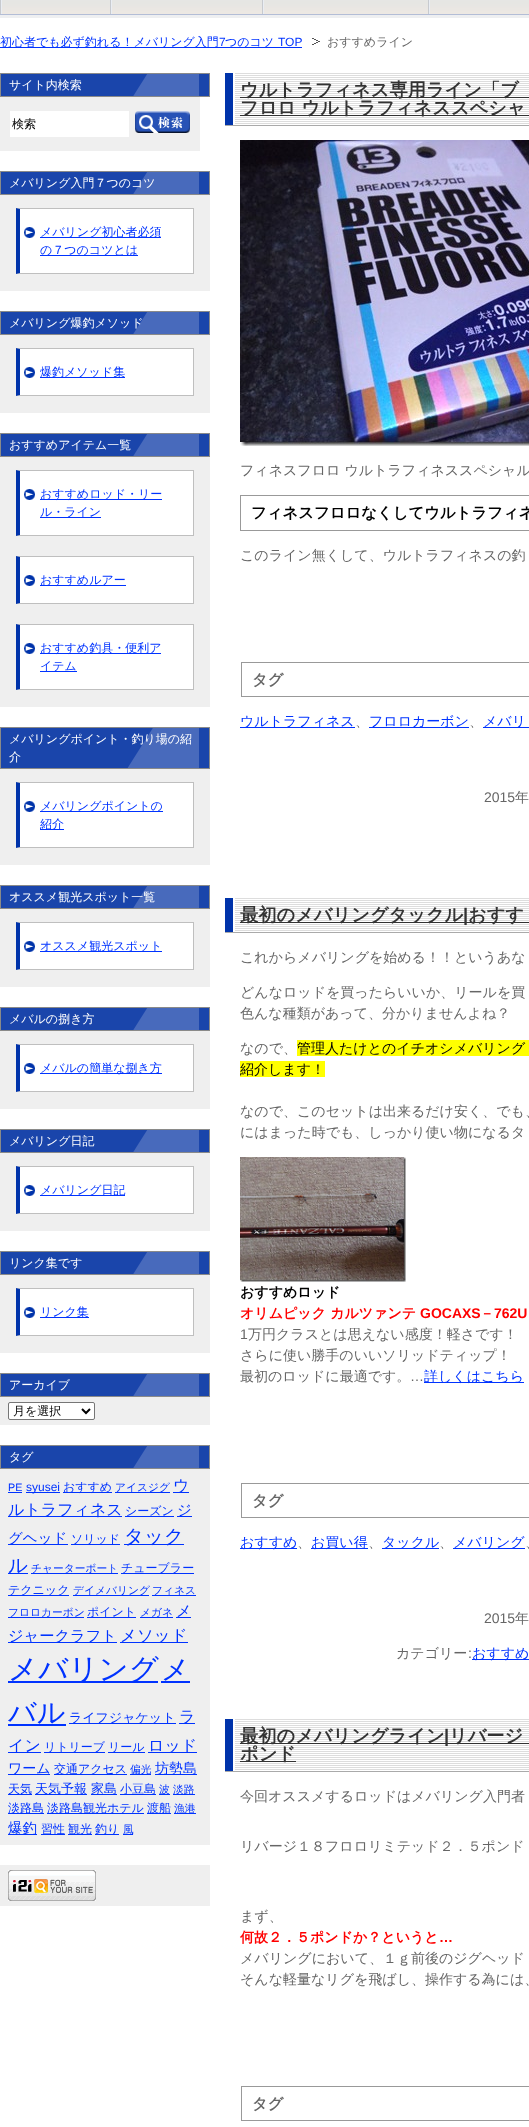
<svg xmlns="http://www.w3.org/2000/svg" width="529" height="2127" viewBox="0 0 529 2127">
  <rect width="100%" height="100%" fill="rgb(255,255,255)"/>
  <image x="0" y="14" width="529" height="4" href="pic1.png"/>
  <rect x="0" y="0" width="1" height="14" fill="rgb(199,202,207)"/>
  <image x="2" y="0" width="108" height="14" href="pic2.png"/>
  <rect x="110" y="0" width="1" height="14" fill="rgb(199,202,207)"/>
  <rect x="1" y="0" width="1" height="14" fill="rgb(233,237,243)"/>
  <image x="112" y="0" width="150" height="14" href="pic3.png"/>
  <rect x="262" y="0" width="1" height="14" fill="rgb(199,202,207)"/>
  <rect x="111" y="0" width="1" height="14" fill="rgb(233,237,243)"/>
  <image x="264" y="0" width="164" height="14" href="pic4.png"/>
  <rect x="428" y="0" width="1" height="14" fill="rgb(199,202,207)"/>
  <rect x="263" y="0" width="1" height="14" fill="rgb(233,237,243)"/>
  <image x="430" y="0" width="99" height="14" href="pic5.png"/>
  <rect x="429" y="0" width="1" height="14" fill="rgb(233,237,243)"/>
  <rect x="0" y="47" width="302" height="1" fill="rgb(0,51,255)"/>
  <text x="0" y="46" font-family="WenQuanYi Zen Hei" font-size="12" font-weight="500" fill="rgb(0,51,255)">初心者でも必ず釣れる！メバリング入門</text>
  <text x="219" y="46" font-family="Liberation Sans" font-size="12" fill="rgb(0,51,255)">7</text>
  <text x="225" y="46" font-family="WenQuanYi Zen Hei" font-size="12" font-weight="500" fill="rgb(0,51,255)">つのコツ</text>
  <text x="278" y="46" font-family="Liberation Sans" font-size="12" fill="rgb(0,51,255)">TOP</text>
  <image x="312" y="38" width="8" height="7" href="pic6.png"/>
  <text x="327" y="46" font-family="WenQuanYi Zen Hei" font-size="12" font-weight="500" fill="rgb(102,102,102)">おすすめライン</text>
  <rect x="1" y="74" width="208" height="22" fill="rgb(26,69,171)"/>
  <image x="133" y="74" width="66" height="22" href="pic7.png"/>
  <rect x="0.5" y="73.5" width="209" height="23" fill="none" stroke="rgb(138,138,137)"/>
  <text x="9" y="89" font-family="WenQuanYi Zen Hei" font-size="12" font-weight="500" fill="rgb(255,255,255)">サイト内検索</text>
  <rect x="0" y="97" width="200" height="54" fill="rgb(239,239,239)"/>
  <rect x="10" y="111" width="119" height="26" fill="rgb(255,255,255)"/>
  <text x="12" y="128" font-family="WenQuanYi Zen Hei" font-size="12" font-weight="500" fill="rgb(0,0,0)">検索</text>
  <image x="135" y="111" width="55" height="22" href="pic8.png"/>
  <rect x="1" y="172" width="208" height="22" fill="rgb(26,69,171)"/>
  <image x="133" y="172" width="66" height="22" href="pic7.png"/>
  <rect x="0.5" y="171.5" width="209" height="23" fill="none" stroke="rgb(138,138,137)"/>
  <text x="9" y="187" font-family="WenQuanYi Zen Hei" font-size="12" font-weight="500" fill="rgb(255,255,255)">メバリング入門７つのコツ</text>
  <rect x="0" y="195" width="210" height="96" fill="rgb(239,239,239)"/>
  <rect x="20" y="209" width="173" height="64" fill="rgb(255,255,255)"/>
  <path d="M16 208H194L193 209H20Z" fill="rgb(191,191,191)"/>
  <rect x="193" y="208" width="1" height="66" fill="rgb(191,191,191)"/>
  <path d="M194 274H16L20 273H193Z" fill="rgb(191,191,191)"/>
  <path d="M16 274V208L20 209V273Z" fill="rgb(0,51,170)"/>
  <image x="24" y="227" width="11" height="11" href="pic9.png"/>
  <rect x="40" y="237" width="121" height="1" fill="rgb(0,51,255)"/>
  <text x="40" y="236" font-family="WenQuanYi Zen Hei" font-size="12" font-weight="500" fill="rgb(0,51,255)">メバリング初心者必須</text>
  <rect x="40" y="255" width="98" height="1" fill="rgb(0,51,255)"/>
  <text x="40" y="254" font-family="WenQuanYi Zen Hei" font-size="12" font-weight="500" fill="rgb(0,51,255)">の７つのコツとは</text>
  <rect x="1" y="312" width="208" height="22" fill="rgb(26,69,171)"/>
  <image x="133" y="312" width="66" height="22" href="pic7.png"/>
  <rect x="0.5" y="311.5" width="209" height="23" fill="none" stroke="rgb(138,138,137)"/>
  <text x="9" y="327" font-family="WenQuanYi Zen Hei" font-size="12" font-weight="500" fill="rgb(255,255,255)">メバリング爆釣メソッド</text>
  <rect x="0" y="335" width="210" height="78" fill="rgb(239,239,239)"/>
  <rect x="20" y="349" width="173" height="46" fill="rgb(255,255,255)"/>
  <path d="M16 348H194L193 349H20Z" fill="rgb(191,191,191)"/>
  <rect x="193" y="348" width="1" height="48" fill="rgb(191,191,191)"/>
  <path d="M194 396H16L20 395H193Z" fill="rgb(191,191,191)"/>
  <path d="M16 396V348L20 349V395Z" fill="rgb(0,51,170)"/>
  <image x="24" y="367" width="11" height="11" href="pic9.png"/>
  <rect x="40" y="377" width="85" height="1" fill="rgb(0,51,255)"/>
  <text x="40" y="376" font-family="WenQuanYi Zen Hei" font-size="12" font-weight="500" fill="rgb(0,51,255)">爆釣メソッド集</text>
  <rect x="1" y="434" width="208" height="22" fill="rgb(26,69,171)"/>
  <image x="133" y="434" width="66" height="22" href="pic7.png"/>
  <rect x="0.5" y="433.5" width="209" height="23" fill="none" stroke="rgb(138,138,137)"/>
  <text x="9" y="449" font-family="WenQuanYi Zen Hei" font-size="12" font-weight="500" fill="rgb(255,255,255)">おすすめアイテム一覧</text>
  <rect x="0" y="457" width="210" height="250" fill="rgb(239,239,239)"/>
  <rect x="20" y="471" width="173" height="64" fill="rgb(255,255,255)"/>
  <path d="M16 470H194L193 471H20Z" fill="rgb(191,191,191)"/>
  <rect x="193" y="470" width="1" height="66" fill="rgb(191,191,191)"/>
  <path d="M194 536H16L20 535H193Z" fill="rgb(191,191,191)"/>
  <path d="M16 536V470L20 471V535Z" fill="rgb(0,51,170)"/>
  <image x="24" y="489" width="11" height="11" href="pic9.png"/>
  <rect x="40" y="499" width="122" height="1" fill="rgb(0,51,255)"/>
  <text x="40" y="498" font-family="WenQuanYi Zen Hei" font-size="12" font-weight="500" fill="rgb(0,51,255)">おすすめロッド・リー</text>
  <rect x="40" y="517" width="61" height="1" fill="rgb(0,51,255)"/>
  <text x="40" y="516" font-family="WenQuanYi Zen Hei" font-size="12" font-weight="500" fill="rgb(0,51,255)">ル・ライン</text>
  <rect x="20" y="557" width="173" height="46" fill="rgb(255,255,255)"/>
  <path d="M16 556H194L193 557H20Z" fill="rgb(191,191,191)"/>
  <rect x="193" y="556" width="1" height="48" fill="rgb(191,191,191)"/>
  <path d="M194 604H16L20 603H193Z" fill="rgb(191,191,191)"/>
  <path d="M16 604V556L20 557V603Z" fill="rgb(0,51,170)"/>
  <image x="24" y="575" width="11" height="11" href="pic9.png"/>
  <rect x="40" y="585" width="86" height="1" fill="rgb(0,51,255)"/>
  <text x="40" y="584" font-family="WenQuanYi Zen Hei" font-size="12" font-weight="500" fill="rgb(0,51,255)">おすすめルアー</text>
  <rect x="20" y="625" width="173" height="64" fill="rgb(255,255,255)"/>
  <path d="M16 624H194L193 625H20Z" fill="rgb(191,191,191)"/>
  <rect x="193" y="624" width="1" height="66" fill="rgb(191,191,191)"/>
  <path d="M194 690H16L20 689H193Z" fill="rgb(191,191,191)"/>
  <path d="M16 690V624L20 625V689Z" fill="rgb(0,51,170)"/>
  <image x="24" y="643" width="11" height="11" href="pic9.png"/>
  <rect x="40" y="653" width="121" height="1" fill="rgb(0,51,255)"/>
  <text x="40" y="652" font-family="WenQuanYi Zen Hei" font-size="12" font-weight="500" fill="rgb(0,51,255)">おすすめ釣具・便利ア</text>
  <rect x="40" y="671" width="37" height="1" fill="rgb(0,51,255)"/>
  <text x="40" y="670" font-family="WenQuanYi Zen Hei" font-size="12" font-weight="500" fill="rgb(0,51,255)">イテム</text>
  <rect x="1" y="728" width="208" height="40" fill="rgb(26,69,171)"/>
  <image x="127" y="728" width="72" height="40" href="pic10.png"/>
  <rect x="0.5" y="727.5" width="209" height="41" fill="none" stroke="rgb(138,138,137)"/>
  <g font-family="WenQuanYi Zen Hei" font-size="12" font-weight="500" fill="rgb(255,255,255)">
    <text>
      <tspan x="9" y="743">メバリングポイント・釣り場の紹</tspan>
      <tspan x="9" y="761">介</tspan>
    </text>
  </g>
  <rect x="0" y="769" width="210" height="96" fill="rgb(239,239,239)"/>
  <rect x="20" y="783" width="173" height="64" fill="rgb(255,255,255)"/>
  <path d="M16 782H194L193 783H20Z" fill="rgb(191,191,191)"/>
  <rect x="193" y="782" width="1" height="66" fill="rgb(191,191,191)"/>
  <path d="M194 848H16L20 847H193Z" fill="rgb(191,191,191)"/>
  <path d="M16 848V782L20 783V847Z" fill="rgb(0,51,170)"/>
  <image x="24" y="801" width="11" height="11" href="pic9.png"/>
  <rect x="40" y="811" width="123" height="1" fill="rgb(0,51,255)"/>
  <text x="40" y="810" font-family="WenQuanYi Zen Hei" font-size="12" font-weight="500" fill="rgb(0,51,255)">メバリングポイントの</text>
  <rect x="40" y="829" width="24" height="1" fill="rgb(0,51,255)"/>
  <text x="40" y="828" font-family="WenQuanYi Zen Hei" font-size="12" font-weight="500" fill="rgb(0,51,255)">紹介</text>
  <rect x="1" y="886" width="208" height="22" fill="rgb(26,69,171)"/>
  <image x="133" y="886" width="66" height="22" href="pic7.png"/>
  <rect x="0.5" y="885.5" width="209" height="23" fill="none" stroke="rgb(138,138,137)"/>
  <text x="9" y="901" font-family="WenQuanYi Zen Hei" font-size="12" font-weight="500" fill="rgb(255,255,255)">オススメ観光スポット一覧</text>
  <rect x="0" y="909" width="210" height="78" fill="rgb(239,239,239)"/>
  <rect x="20" y="923" width="173" height="46" fill="rgb(255,255,255)"/>
  <path d="M16 922H194L193 923H20Z" fill="rgb(191,191,191)"/>
  <rect x="193" y="922" width="1" height="48" fill="rgb(191,191,191)"/>
  <path d="M194 970H16L20 969H193Z" fill="rgb(191,191,191)"/>
  <path d="M16 970V922L20 923V969Z" fill="rgb(0,51,170)"/>
  <image x="24" y="941" width="11" height="11" href="pic9.png"/>
  <rect x="40" y="951" width="122" height="1" fill="rgb(0,51,255)"/>
  <text x="40" y="950" font-family="WenQuanYi Zen Hei" font-size="12" font-weight="500" fill="rgb(0,51,255)">オススメ観光スポット</text>
  <rect x="1" y="1008" width="208" height="22" fill="rgb(26,69,171)"/>
  <image x="133" y="1008" width="66" height="22" href="pic7.png"/>
  <rect x="0.5" y="1007.5" width="209" height="23" fill="none" stroke="rgb(138,138,137)"/>
  <text x="9" y="1023" font-family="WenQuanYi Zen Hei" font-size="12" font-weight="500" fill="rgb(255,255,255)">メバルの捌き方</text>
  <rect x="0" y="1031" width="210" height="78" fill="rgb(239,239,239)"/>
  <rect x="20" y="1045" width="173" height="46" fill="rgb(255,255,255)"/>
  <path d="M16 1044H194L193 1045H20Z" fill="rgb(191,191,191)"/>
  <rect x="193" y="1044" width="1" height="48" fill="rgb(191,191,191)"/>
  <path d="M194 1092H16L20 1091H193Z" fill="rgb(191,191,191)"/>
  <path d="M16 1092V1044L20 1045V1091Z" fill="rgb(0,51,170)"/>
  <image x="24" y="1063" width="11" height="11" href="pic9.png"/>
  <rect x="40" y="1073" width="122" height="1" fill="rgb(0,51,255)"/>
  <text x="40" y="1072" font-family="WenQuanYi Zen Hei" font-size="12" font-weight="500" fill="rgb(0,51,255)">メバルの簡単な捌き方</text>
  <rect x="1" y="1130" width="208" height="22" fill="rgb(26,69,171)"/>
  <image x="133" y="1130" width="66" height="22" href="pic7.png"/>
  <rect x="0.5" y="1129.5" width="209" height="23" fill="none" stroke="rgb(138,138,137)"/>
  <text x="9" y="1145" font-family="WenQuanYi Zen Hei" font-size="12" font-weight="500" fill="rgb(255,255,255)">メバリング日記</text>
  <rect x="0" y="1153" width="210" height="78" fill="rgb(239,239,239)"/>
  <rect x="20" y="1167" width="173" height="46" fill="rgb(255,255,255)"/>
  <path d="M16 1166H194L193 1167H20Z" fill="rgb(191,191,191)"/>
  <rect x="193" y="1166" width="1" height="48" fill="rgb(191,191,191)"/>
  <path d="M194 1214H16L20 1213H193Z" fill="rgb(191,191,191)"/>
  <path d="M16 1214V1166L20 1167V1213Z" fill="rgb(0,51,170)"/>
  <image x="24" y="1185" width="11" height="11" href="pic9.png"/>
  <rect x="40" y="1195" width="85" height="1" fill="rgb(0,51,255)"/>
  <text x="40" y="1194" font-family="WenQuanYi Zen Hei" font-size="12" font-weight="500" fill="rgb(0,51,255)">メバリング日記</text>
  <rect x="1" y="1252" width="208" height="22" fill="rgb(26,69,171)"/>
  <image x="133" y="1252" width="66" height="22" href="pic7.png"/>
  <rect x="0.5" y="1251.5" width="209" height="23" fill="none" stroke="rgb(138,138,137)"/>
  <text x="9" y="1267" font-family="WenQuanYi Zen Hei" font-size="12" font-weight="500" fill="rgb(255,255,255)">リンク集です</text>
  <rect x="0" y="1275" width="210" height="78" fill="rgb(239,239,239)"/>
  <rect x="20" y="1289" width="173" height="46" fill="rgb(255,255,255)"/>
  <path d="M16 1288H194L193 1289H20Z" fill="rgb(191,191,191)"/>
  <rect x="193" y="1288" width="1" height="48" fill="rgb(191,191,191)"/>
  <path d="M194 1336H16L20 1335H193Z" fill="rgb(191,191,191)"/>
  <path d="M16 1336V1288L20 1289V1335Z" fill="rgb(0,51,170)"/>
  <image x="24" y="1307" width="11" height="11" href="pic9.png"/>
  <rect x="40" y="1317" width="49" height="1" fill="rgb(0,51,255)"/>
  <text x="40" y="1316" font-family="WenQuanYi Zen Hei" font-size="12" font-weight="500" fill="rgb(0,51,255)">リンク集</text>
  <rect x="1" y="1374" width="208" height="22" fill="rgb(26,69,171)"/>
  <image x="133" y="1374" width="66" height="22" href="pic7.png"/>
  <rect x="0.5" y="1373.5" width="209" height="23" fill="none" stroke="rgb(138,138,137)"/>
  <text x="9" y="1389" font-family="WenQuanYi Zen Hei" font-size="12" font-weight="500" fill="rgb(255,255,255)">アーカイブ</text>
  <rect x="0" y="1397" width="210" height="28" fill="rgb(239,239,239)"/>
  <rect x="8.5" y="1402.5" width="86" height="17" rx="1.5" fill="rgb(255,255,255)" stroke="rgb(118,118,118)"/>
  <path d="M82 1409L86 1413L90 1409" fill="none" stroke="rgb(0,0,0)" stroke-width="2"/>
  <text x="13" y="1415" font-family="WenQuanYi Zen Hei" font-size="12" font-weight="500" fill="rgb(0,0,0)">月を選択</text>
  <rect x="1" y="1446" width="208" height="22" fill="rgb(26,69,171)"/>
  <image x="133" y="1446" width="66" height="22" href="pic7.png"/>
  <rect x="0.5" y="1445.5" width="209" height="23" fill="none" stroke="rgb(138,138,137)"/>
  <text x="9" y="1461" font-family="WenQuanYi Zen Hei" font-size="12" font-weight="500" fill="rgb(255,255,255)">タグ</text>
  <rect x="0" y="1469" width="210" height="376" fill="rgb(239,239,239)"/>
  <text x="8" y="1491" font-family="Liberation Sans" font-size="10.75" fill="rgb(0,51,255)">PE</text>
  <rect x="8" y="1492" width="14" height="1" fill="rgb(0,51,255)"/>
  <rect x="26" y="1492" width="34" height="1" fill="rgb(0,51,255)"/>
  <text x="26" y="1491" font-family="Liberation Sans" font-size="12" fill="rgb(0,51,255)">syusei</text>
  <rect x="63" y="1492" width="49" height="1" fill="rgb(0,51,255)"/>
  <text x="63" y="1491" font-family="WenQuanYi Zen Hei" font-size="12" font-weight="500" fill="rgb(0,51,255)">おすすめ</text>
  <rect x="115" y="1492" width="55" height="1" fill="rgb(0,51,255)"/>
  <text x="115" y="1491" font-family="WenQuanYi Zen Hei" font-size="10.75" font-weight="500" fill="rgb(0,51,255)">アイスジグ</text>
  <rect x="173" y="1492" width="16" height="1" fill="rgb(0,51,255)"/>
  <text x="173" y="1491" font-family="WenQuanYi Zen Hei" font-size="16" font-weight="500" fill="rgb(0,51,255)">ウ</text>
  <rect x="8" y="1516" width="114" height="1" fill="rgb(0,51,255)"/>
  <text x="8" y="1515" font-family="WenQuanYi Zen Hei" font-size="16" font-weight="500" fill="rgb(0,51,255)">ルトラフィネス</text>
  <rect x="125" y="1516" width="49" height="1" fill="rgb(0,51,255)"/>
  <text x="125" y="1515" font-family="WenQuanYi Zen Hei" font-size="12" font-weight="500" fill="rgb(0,51,255)">シーズン</text>
  <rect x="177" y="1516" width="15" height="1" fill="rgb(0,51,255)"/>
  <text x="177" y="1515" font-family="WenQuanYi Zen Hei" font-size="14.5" font-weight="500" fill="rgb(0,51,255)">ジ</text>
  <rect x="8" y="1544" width="60" height="1" fill="rgb(0,51,255)"/>
  <text x="8" y="1543" font-family="WenQuanYi Zen Hei" font-size="14.5" font-weight="500" fill="rgb(0,51,255)">グヘッド</text>
  <rect x="71" y="1544" width="49" height="1" fill="rgb(0,51,255)"/>
  <text x="71" y="1543" font-family="WenQuanYi Zen Hei" font-size="12" font-weight="500" fill="rgb(0,51,255)">ソリッド</text>
  <rect x="124" y="1544" width="60" height="1" fill="rgb(0,51,255)"/>
  <text x="124" y="1543" font-family="WenQuanYi Zen Hei" font-size="19.5" font-weight="500" fill="rgb(0,51,255)">タック</text>
  <rect x="8" y="1573" width="20" height="1" fill="rgb(0,51,255)"/>
  <text x="8" y="1572" font-family="WenQuanYi Zen Hei" font-size="19.5" font-weight="500" fill="rgb(0,51,255)">ル</text>
  <rect x="31" y="1573" width="87" height="1" fill="rgb(0,51,255)"/>
  <text x="31" y="1572" font-family="WenQuanYi Zen Hei" font-size="10.75" font-weight="500" fill="rgb(0,51,255)">チャーターボート</text>
  <rect x="121" y="1573" width="73" height="1" fill="rgb(0,51,255)"/>
  <text x="121" y="1572" font-family="WenQuanYi Zen Hei" font-size="12" font-weight="500" fill="rgb(0,51,255)">チューブラー</text>
  <rect x="8" y="1595" width="61" height="1" fill="rgb(0,51,255)"/>
  <text x="8" y="1594" font-family="WenQuanYi Zen Hei" font-size="12" font-weight="500" fill="rgb(0,51,255)">テクニック</text>
  <rect x="73" y="1595" width="76" height="1" fill="rgb(0,51,255)"/>
  <text x="73" y="1594" font-family="WenQuanYi Zen Hei" font-size="10.75" font-weight="500" fill="rgb(0,51,255)">デイメバリング</text>
  <rect x="152" y="1595" width="44" height="1" fill="rgb(0,51,255)"/>
  <text x="152" y="1594" font-family="WenQuanYi Zen Hei" font-size="10.75" font-weight="500" fill="rgb(0,51,255)">フィネス</text>
  <rect x="8" y="1617" width="76" height="1" fill="rgb(0,51,255)"/>
  <text x="8" y="1616" font-family="WenQuanYi Zen Hei" font-size="10.75" font-weight="500" fill="rgb(0,51,255)">フロロカーボン</text>
  <rect x="87" y="1617" width="49" height="1" fill="rgb(0,51,255)"/>
  <text x="87" y="1616" font-family="WenQuanYi Zen Hei" font-size="12" font-weight="500" fill="rgb(0,51,255)">ポイント</text>
  <rect x="140" y="1617" width="33" height="1" fill="rgb(0,51,255)"/>
  <text x="140" y="1616" font-family="WenQuanYi Zen Hei" font-size="10.75" font-weight="500" fill="rgb(0,51,255)">メガネ</text>
  <text x="176" y="1616" font-family="WenQuanYi Zen Hei" font-size="15.25" font-weight="500" fill="rgb(0,51,255)">メ</text>
  <rect x="176" y="1617" width="15" height="1" fill="rgb(0,51,255)"/>
  <rect x="8" y="1642" width="109" height="1" fill="rgb(0,51,255)"/>
  <text x="8" y="1641" font-family="WenQuanYi Zen Hei" font-size="15.25" font-weight="500" fill="rgb(0,51,255)">ジャークラフト</text>
  <rect x="120" y="1642" width="68" height="1" fill="rgb(0,51,255)"/>
  <text x="120" y="1641" font-family="WenQuanYi Zen Hei" font-size="16.5" font-weight="500" fill="rgb(0,51,255)">メソッド</text>
  <rect x="8" y="1681" width="150" height="2" fill="rgb(0,51,255)"/>
  <text x="8" y="1679" font-family="WenQuanYi Zen Hei" font-size="29.5" font-weight="500" fill="rgb(0,51,255)">メバリング</text>
  <text x="161" y="1679" font-family="WenQuanYi Zen Hei" font-size="28" font-weight="500" fill="rgb(0,51,255)">メ</text>
  <rect x="161" y="1681" width="29" height="2" fill="rgb(0,51,255)"/>
  <text x="8" y="1722" font-family="WenQuanYi Zen Hei" font-size="28" font-weight="500" fill="rgb(0,51,255)">バル</text>
  <rect x="8" y="1724" width="58" height="2" fill="rgb(0,51,255)"/>
  <rect x="69" y="1723" width="107" height="1" fill="rgb(0,51,255)"/>
  <text x="69" y="1722" font-family="WenQuanYi Zen Hei" font-size="13" font-weight="500" fill="rgb(0,51,255)">ライフジャケット</text>
  <rect x="179" y="1723" width="16" height="1" fill="rgb(0,51,255)"/>
  <text x="179" y="1722" font-family="WenQuanYi Zen Hei" font-size="16" font-weight="500" fill="rgb(0,51,255)">ラ</text>
  <rect x="8" y="1752" width="33" height="1" fill="rgb(0,51,255)"/>
  <text x="8" y="1751" font-family="WenQuanYi Zen Hei" font-size="16" font-weight="500" fill="rgb(0,51,255)">イン</text>
  <rect x="44" y="1752" width="61" height="1" fill="rgb(0,51,255)"/>
  <text x="44" y="1751" font-family="WenQuanYi Zen Hei" font-size="12" font-weight="500" fill="rgb(0,51,255)">リトリーブ</text>
  <rect x="108" y="1752" width="37" height="1" fill="rgb(0,51,255)"/>
  <text x="108" y="1751" font-family="WenQuanYi Zen Hei" font-size="12" font-weight="500" fill="rgb(0,51,255)">リール</text>
  <rect x="148" y="1752" width="49" height="1" fill="rgb(0,51,255)"/>
  <text x="148" y="1751" font-family="WenQuanYi Zen Hei" font-size="16" font-weight="500" fill="rgb(0,51,255)">ロッド</text>
  <rect x="8" y="1774" width="42" height="1" fill="rgb(0,51,255)"/>
  <text x="8" y="1773" font-family="WenQuanYi Zen Hei" font-size="14" font-weight="500" fill="rgb(0,51,255)">ワーム</text>
  <rect x="54" y="1774" width="73" height="1" fill="rgb(0,51,255)"/>
  <text x="54" y="1773" font-family="WenQuanYi Zen Hei" font-size="12" font-weight="500" fill="rgb(0,51,255)">交通アクセス</text>
  <rect x="130" y="1774" width="21" height="1" fill="rgb(0,51,255)"/>
  <text x="130" y="1773" font-family="WenQuanYi Zen Hei" font-size="10.75" font-weight="500" fill="rgb(0,51,255)">偏光</text>
  <rect x="155" y="1774" width="42" height="1" fill="rgb(0,51,255)"/>
  <text x="155" y="1773" font-family="WenQuanYi Zen Hei" font-size="14" font-weight="500" fill="rgb(0,51,255)">坊勢島</text>
  <rect x="8" y="1794" width="24" height="1" fill="rgb(0,51,255)"/>
  <text x="8" y="1793" font-family="WenQuanYi Zen Hei" font-size="12" font-weight="500" fill="rgb(0,51,255)">天気</text>
  <rect x="35" y="1794" width="52" height="1" fill="rgb(0,51,255)"/>
  <text x="35" y="1793" font-family="WenQuanYi Zen Hei" font-size="13" font-weight="500" fill="rgb(0,51,255)">天気予報</text>
  <rect x="91" y="1794" width="26" height="1" fill="rgb(0,51,255)"/>
  <text x="91" y="1793" font-family="WenQuanYi Zen Hei" font-size="13" font-weight="500" fill="rgb(0,51,255)">家島</text>
  <rect x="120" y="1794" width="36" height="1" fill="rgb(0,51,255)"/>
  <text x="120" y="1793" font-family="WenQuanYi Zen Hei" font-size="12" font-weight="500" fill="rgb(0,51,255)">小豆島</text>
  <rect x="159" y="1794" width="11" height="1" fill="rgb(0,51,255)"/>
  <text x="159" y="1793" font-family="WenQuanYi Zen Hei" font-size="10.75" font-weight="500" fill="rgb(0,51,255)">波</text>
  <rect x="173" y="1794" width="22" height="1" fill="rgb(0,51,255)"/>
  <text x="173" y="1793" font-family="WenQuanYi Zen Hei" font-size="10.75" font-weight="500" fill="rgb(0,51,255)">淡路</text>
  <rect x="8" y="1813" width="36" height="1" fill="rgb(0,51,255)"/>
  <text x="8" y="1812" font-family="WenQuanYi Zen Hei" font-size="12" font-weight="500" fill="rgb(0,51,255)">淡路島</text>
  <rect x="47" y="1813" width="97" height="1" fill="rgb(0,51,255)"/>
  <text x="47" y="1812" font-family="WenQuanYi Zen Hei" font-size="12" font-weight="500" fill="rgb(0,51,255)">淡路島観光ホテル</text>
  <rect x="147" y="1813" width="24" height="1" fill="rgb(0,51,255)"/>
  <text x="147" y="1812" font-family="WenQuanYi Zen Hei" font-size="12" font-weight="500" fill="rgb(0,51,255)">渡船</text>
  <rect x="174" y="1813" width="22" height="1" fill="rgb(0,51,255)"/>
  <text x="174" y="1812" font-family="WenQuanYi Zen Hei" font-size="10.75" font-weight="500" fill="rgb(0,51,255)">漁港</text>
  <rect x="8" y="1834" width="29" height="1" fill="rgb(0,51,255)"/>
  <text x="8" y="1833" font-family="WenQuanYi Zen Hei" font-size="14.5" font-weight="500" fill="rgb(0,51,255)">爆釣</text>
  <rect x="41" y="1834" width="24" height="1" fill="rgb(0,51,255)"/>
  <text x="41" y="1833" font-family="WenQuanYi Zen Hei" font-size="12" font-weight="500" fill="rgb(0,51,255)">習性</text>
  <rect x="68" y="1834" width="24" height="1" fill="rgb(0,51,255)"/>
  <text x="68" y="1833" font-family="WenQuanYi Zen Hei" font-size="12" font-weight="500" fill="rgb(0,51,255)">観光</text>
  <rect x="95" y="1834" width="24" height="1" fill="rgb(0,51,255)"/>
  <text x="95" y="1833" font-family="WenQuanYi Zen Hei" font-size="12" font-weight="500" fill="rgb(0,51,255)">釣り</text>
  <rect x="123" y="1834" width="10" height="1" fill="rgb(0,51,255)"/>
  <text x="123" y="1833" font-family="WenQuanYi Zen Hei" font-size="10.75" font-weight="500" fill="rgb(0,51,255)">風</text>
  <rect x="0" y="1865" width="210" height="41" fill="rgb(239,239,239)"/>
  <image x="8" y="1870" width="88" height="31" href="pic11.png"/>
  <image x="225" y="73" width="304" height="52" href="pic12.png"/>
  <rect x="225" y="125" width="304" height="1" fill="rgb(170,170,170)"/>
  <rect x="240" y="97" width="289" height="1" fill="rgb(51,51,51)"/>
  <text x="240" y="96" font-family="WenQuanYi Zen Hei" font-size="18.25" font-weight="bold" fill="rgb(51,51,51)">ウルトラフィネス専用ライン「ブ</text>
  <rect x="240" y="115" width="289" height="1" fill="rgb(51,51,51)"/>
  <text x="240" y="114" font-family="WenQuanYi Zen Hei" font-size="18.25" font-weight="bold" fill="rgb(51,51,51)">フロロ ウルトラフィネススペシャ</text>
  <image x="240" y="140" width="289" height="306" href="pic13.png"/>
  <text x="240" y="475" font-family="WenQuanYi Zen Hei" font-size="14" font-weight="500" fill="rgb(102,102,102)">フィネスフロロ ウルトラフィネススペシャル</text>
  <rect x="240.5" y="495.5" width="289" height="35" fill="none" stroke="rgb(153,153,153)"/>
  <text x="251" y="518" font-family="WenQuanYi Zen Hei" font-size="15.4" font-weight="bold" fill="rgb(0,0,0)">フィネスフロロなくしてウルトラフィネ</text>
  <text x="240" y="560" font-family="WenQuanYi Zen Hei" font-size="14" font-weight="500" fill="rgb(102,102,102)">このライン無くして、ウルトラフィネスの釣</text>
  <rect x="241.5" y="662.5" width="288" height="34" fill="none" stroke="rgb(153,153,153)"/>
  <text x="252" y="685" font-family="WenQuanYi Zen Hei" font-size="15.4" font-weight="bold" fill="rgb(102,102,102)">タグ</text>
  <rect x="240" y="727" width="115" height="1" fill="rgb(0,51,255)"/>
  <text x="240" y="726" font-family="WenQuanYi Zen Hei" font-size="14" font-weight="500" fill="rgb(0,51,255)">ウルトラフィネス</text>
  <text x="355" y="726" font-family="WenQuanYi Zen Hei" font-size="14" font-weight="500" fill="rgb(102,102,102)">、</text>
  <rect x="369" y="727" width="100" height="1" fill="rgb(0,51,255)"/>
  <text x="369" y="726" font-family="WenQuanYi Zen Hei" font-size="14" font-weight="500" fill="rgb(0,51,255)">フロロカーボン</text>
  <text x="469" y="726" font-family="WenQuanYi Zen Hei" font-size="14" font-weight="500" fill="rgb(102,102,102)">、</text>
  <rect x="483" y="727" width="46" height="1" fill="rgb(0,51,255)"/>
  <text x="483" y="726" font-family="WenQuanYi Zen Hei" font-size="14" font-weight="500" fill="rgb(0,51,255)">メバリ</text>
  <text x="484" y="802" font-family="Liberation Sans" font-size="14" fill="rgb(102,102,102)">2015</text>
  <text x="515" y="802" font-family="WenQuanYi Zen Hei" font-size="14" font-weight="500" fill="rgb(102,102,102)">年</text>
  <image x="225" y="898" width="304" height="34" href="pic14.png"/>
  <rect x="225" y="932" width="304" height="1" fill="rgb(170,170,170)"/>
  <rect x="240" y="922" width="289" height="1" fill="rgb(51,51,51)"/>
  <text x="240" y="921" font-family="WenQuanYi Zen Hei" font-size="18.25" font-weight="bold" fill="rgb(51,51,51)">最初のメバリングタックル</text>
  <text x="463" y="921" font-family="Liberation Sans" font-size="18.25" font-weight="bold" fill="rgb(51,51,51)">|</text>
  <text x="468" y="921" font-family="WenQuanYi Zen Hei" font-size="18.25" font-weight="bold" fill="rgb(51,51,51)">おすす</text>
  <g font-family="WenQuanYi Zen Hei" font-size="14" font-weight="500" fill="rgb(102,102,102)">
    <text x="240" y="962">これからメバリングを始める！！というあな</text>
    <text>
      <tspan x="240" y="997">どんなロッドを買ったらいいか、リールを買</tspan>
      <tspan x="240" y="1018">色んな種類があって、分かりませんよね？</tspan>
    </text>
    <text x="240" y="1053">なので、</text>
  </g>
  <rect x="297" y="1040" width="232" height="16" fill="rgb(255,255,0)"/>
  <text x="297" y="1053" font-family="WenQuanYi Zen Hei" font-size="14" font-weight="500" fill="rgb(0,0,0)">管理人たけとのイチオシメバリング</text>
  <rect x="240" y="1061" width="85" height="16" fill="rgb(255,255,0)"/>
  <text x="240" y="1074" font-family="WenQuanYi Zen Hei" font-size="14" font-weight="500" fill="rgb(0,0,0)">紹介します！</text>
  <g font-family="WenQuanYi Zen Hei" font-size="14" font-weight="500" fill="rgb(102,102,102)">
    <text>
      <tspan x="240" y="1116">なので、このセットは出来るだけ安く、でも、</tspan>
      <tspan x="240" y="1137">にはまった時でも、しっかり使い物になるタ</tspan>
    </text>
  </g>
  <image x="240" y="1157" width="166" height="125" href="pic15.png"/>
  <text x="240" y="1297" font-family="WenQuanYi Zen Hei" font-size="14" font-weight="bold" fill="rgb(0,0,0)">おすすめロッド</text>
  <text x="240" y="1318" font-family="WenQuanYi Zen Hei" font-size="14" font-weight="bold" fill="rgb(255,0,0)">オリムピック カルツァンテ</text>
  <text x="420" y="1318" font-family="Liberation Sans" font-size="14" font-weight="bold" fill="rgb(255,0,0)">GOCAXS</text>
  <text x="480" y="1318" font-family="WenQuanYi Zen Hei" font-size="14" font-weight="bold" fill="rgb(255,0,0)">－</text>
  <text x="494" y="1318" font-family="Liberation Sans" font-size="14" font-weight="bold" fill="rgb(255,0,0)">762U</text>
  <text x="240" y="1339" font-family="Liberation Sans" font-size="14" fill="rgb(102,102,102)">1</text>
  <g font-family="WenQuanYi Zen Hei" font-size="14" font-weight="500" fill="rgb(102,102,102)">
    <text x="248" y="1339">万円クラスとは思えない感度！軽さです！</text>
    <text>
      <tspan x="240" y="1360">さらに使い勝手のいいソリッドティップ！</tspan>
      <tspan x="240" y="1381">最初のロッドに最適です。</tspan>
    </text>
  </g>
  <text x="410" y="1381" font-family="Liberation Sans" font-size="14" fill="rgb(102,102,102)">…</text>
  <rect x="424" y="1382" width="100" height="1" fill="rgb(0,51,255)"/>
  <text x="424" y="1381" font-family="WenQuanYi Zen Hei" font-size="14" font-weight="500" fill="rgb(0,51,255)">詳しくはこちら</text>
  <rect x="241.5" y="1483.5" width="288" height="34" fill="none" stroke="rgb(153,153,153)"/>
  <text x="252" y="1506" font-family="WenQuanYi Zen Hei" font-size="15.4" font-weight="bold" fill="rgb(102,102,102)">タグ</text>
  <rect x="240" y="1548" width="57" height="1" fill="rgb(0,51,255)"/>
  <text x="240" y="1547" font-family="WenQuanYi Zen Hei" font-size="14" font-weight="500" fill="rgb(0,51,255)">おすすめ</text>
  <text x="297" y="1547" font-family="WenQuanYi Zen Hei" font-size="14" font-weight="500" fill="rgb(102,102,102)">、</text>
  <rect x="311" y="1548" width="57" height="1" fill="rgb(0,51,255)"/>
  <text x="311" y="1547" font-family="WenQuanYi Zen Hei" font-size="14" font-weight="500" fill="rgb(0,51,255)">お買い得</text>
  <text x="368" y="1547" font-family="WenQuanYi Zen Hei" font-size="14" font-weight="500" fill="rgb(102,102,102)">、</text>
  <rect x="382" y="1548" width="57" height="1" fill="rgb(0,51,255)"/>
  <text x="382" y="1547" font-family="WenQuanYi Zen Hei" font-size="14" font-weight="500" fill="rgb(0,51,255)">タックル</text>
  <text x="439" y="1547" font-family="WenQuanYi Zen Hei" font-size="14" font-weight="500" fill="rgb(102,102,102)">、</text>
  <rect x="453" y="1548" width="72" height="1" fill="rgb(0,51,255)"/>
  <text x="453" y="1547" font-family="WenQuanYi Zen Hei" font-size="14" font-weight="500" fill="rgb(0,51,255)">メバリング</text>
  <text x="525" y="1547" font-family="WenQuanYi Zen Hei" font-size="14" font-weight="500" fill="rgb(102,102,102)">、</text>
  <text x="484" y="1623" font-family="Liberation Sans" font-size="14" fill="rgb(102,102,102)">2015</text>
  <g font-family="WenQuanYi Zen Hei" font-size="14" font-weight="500" fill="rgb(102,102,102)">
    <text x="515" y="1623">年</text>
    <text x="396" y="1658">カテゴリー</text>
  </g>
  <text x="468" y="1658" font-family="Liberation Sans" font-size="14" fill="rgb(102,102,102)">:</text>
  <rect x="472" y="1659" width="57" height="1" fill="rgb(0,51,255)"/>
  <text x="472" y="1658" font-family="WenQuanYi Zen Hei" font-size="14" font-weight="500" fill="rgb(0,51,255)">おすすめ</text>
  <image x="225" y="1719" width="304" height="52" href="pic12.png"/>
  <rect x="225" y="1771" width="304" height="1" fill="rgb(170,170,170)"/>
  <rect x="240" y="1743" width="289" height="1" fill="rgb(51,51,51)"/>
  <text x="240" y="1742" font-family="WenQuanYi Zen Hei" font-size="18.25" font-weight="bold" fill="rgb(51,51,51)">最初のメバリングライン</text>
  <text x="444" y="1742" font-family="Liberation Sans" font-size="18.25" font-weight="bold" fill="rgb(51,51,51)">|</text>
  <text x="449" y="1742" word-spacing="-1" font-family="WenQuanYi Zen Hei" font-size="18.25" font-weight="bold" fill="rgb(51,51,51)">リバージ</text>
  <rect x="240" y="1761" width="56" height="1" fill="rgb(51,51,51)"/>
  <text x="240" y="1760" font-family="WenQuanYi Zen Hei" font-size="18.25" font-weight="bold" fill="rgb(51,51,51)">ポンド</text>
  <g font-family="WenQuanYi Zen Hei" font-size="14" font-weight="500" fill="rgb(102,102,102)">
    <text x="240" y="1801">今回オススメするロッドはメバリング入門者</text>
    <text x="240" y="1851">リバージ１８フロロリミテッド２．５ポンド</text>
    <text x="240" y="1921">まず、</text>
  </g>
  <text x="240" y="1942" font-family="WenQuanYi Zen Hei" font-size="14" font-weight="bold" fill="rgb(255,0,0)">何故２．５ポンドか？というと</text>
  <text x="439" y="1942" font-family="Liberation Sans" font-size="14" font-weight="bold" fill="rgb(255,0,0)">…</text>
  <g font-family="WenQuanYi Zen Hei" font-size="14" font-weight="500" fill="rgb(102,102,102)">
    <text>
      <tspan x="240" y="1963">メバリングにおいて、１ｇ前後のジグヘッド</tspan>
      <tspan x="240" y="1984">そんな軽量なリグを飛ばし、操作する為には、</tspan>
    </text>
  </g>
  <rect x="241.5" y="2086.5" width="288" height="34" fill="none" stroke="rgb(153,153,153)"/>
  <text x="252" y="2109" font-family="WenQuanYi Zen Hei" font-size="15.4" font-weight="bold" fill="rgb(102,102,102)">タグ</text>
</svg>
